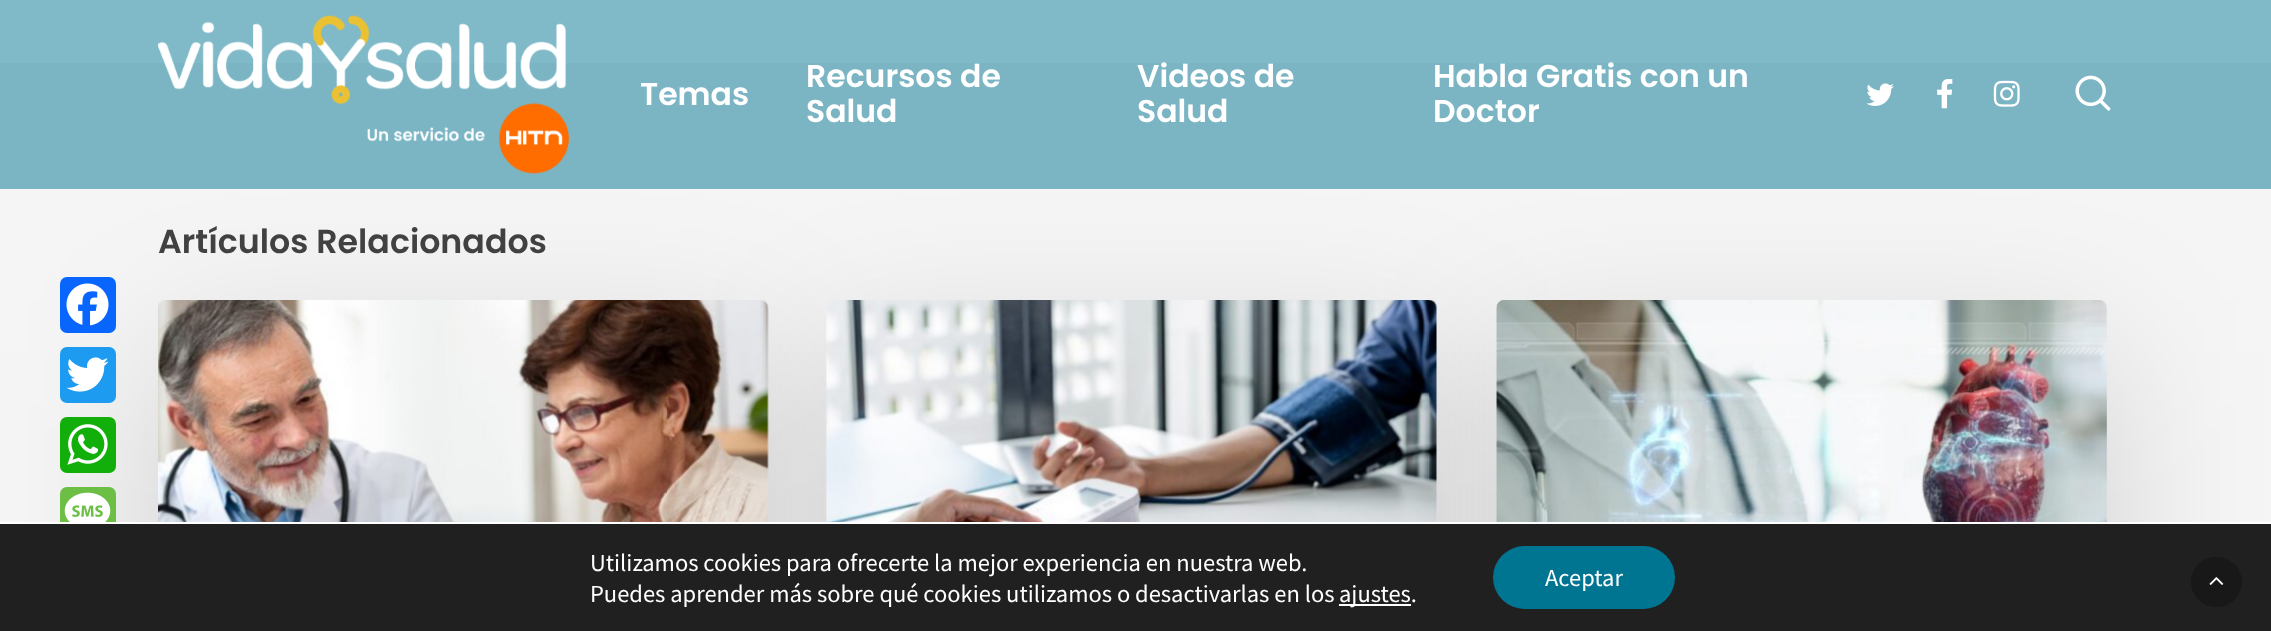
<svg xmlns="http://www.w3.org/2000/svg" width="2271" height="631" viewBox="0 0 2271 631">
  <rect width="100%" height="100%" fill="rgb(128,186,201)"/>
  <rect x="0" y="189" width="2271" height="333" fill="rgb(245,245,245)"/>
  <rect x="0" y="63" width="2271" height="126" fill="rgb(123,181,196)"/>
  <rect x="158" y="352" width="610" height="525" rx="9" fill="rgba(0,0,0,0.14)" filter="blur(79px)"/>
  <image x="158" y="15" width="411" height="159" href="pic1.png"/>
  <g font-family="Poppins" font-size="31.5" font-weight="600" fill="rgb(255,255,255)">
    <text x="640" y="105">Temas</text>
    <text x="806" y="87">Recursos de</text>
  </g>
  <image x="158" y="300" width="611" height="222" href="pic6.png"/>
  <rect x="826" y="352" width="611" height="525" rx="9" fill="rgba(0,0,0,0.14)" filter="blur(79px)"/>
  <g font-family="Poppins" font-size="31.5" font-weight="600" fill="rgb(255,255,255)">
    <text x="806" y="122">Salud</text>
    <text>
      <tspan x="1137" y="87">Videos de</tspan>
      <tspan x="1137" y="122">Salud</tspan>
    </text>
    <text x="1433" y="87">Habla Gratis con un</text>
  </g>
  <image x="825" y="300" width="612" height="222" href="pic7.png"/>
  <rect x="1496" y="352" width="611" height="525" rx="9" fill="rgba(0,0,0,0.14)" filter="blur(79px)"/>
  <text x="1433" y="122" font-family="Poppins" font-size="31.5" font-weight="600" fill="rgb(255,255,255)">Doctor</text>
  <image x="1866" y="83" width="28" height="23" href="pic2.png"/>
  <image x="1937" y="79" width="16" height="30" href="pic3.png"/>
  <image x="1993" y="80" width="27" height="27" href="pic4.png"/>
  <image x="2075" y="75" width="36" height="36" href="pic5.png"/>
  <image x="1496" y="300" width="611" height="222" href="pic8.png"/>
  <text x="158" y="253" font-family="Poppins" font-size="33.25" font-weight="600" fill="rgb(65,65,65)">Artículos Relacionados</text>
  <rect x="60" y="277" width="56" height="56" rx="7" fill="rgb(8,102,255)"/>
  <image x="66" y="283" width="43" height="43" href="pic9.png"/>
  <rect x="60" y="347" width="56" height="56" rx="7" fill="rgb(29,155,240)"/>
  <image x="66" y="357" width="43" height="35" href="pic10.png"/>
  <rect x="60" y="417" width="56" height="56" rx="7" fill="rgb(18,175,10)"/>
  <image x="67" y="424" width="41" height="41" href="pic11.png"/>
  <rect x="60" y="487" width="56" height="56" rx="7" fill="rgb(108,190,69)"/>
  <image x="64" y="492" width="47" height="30" href="pic12.png"/>
  <rect x="0" y="524" width="2271" height="107" fill="rgb(32,32,32)"/>
  <rect x="2191" y="557" width="51" height="50" rx="25" fill="rgb(24,24,24)"/>
  <image x="2209" y="577" width="15" height="8" href="pic13.png"/>
  <rect x="0" y="522" width="2271" height="2" fill="rgb(255,255,255)"/>
  <g font-family="Source Sans Pro" font-size="24.5" fill="rgb(255,255,255)">
    <text>
      <tspan x="590" y="571">Utilizamos cookies para ofrecerte la mejor experiencia en nuestra web.</tspan>
      <tspan x="590" y="602">Puedes aprender más sobre qué cookies utilizamos o desactivarlas en los</tspan>
    </text>
  </g>
  <rect x="1339" y="604" width="72" height="2" fill="rgb(255,255,255)"/>
  <text x="1339" y="602" font-family="Source Sans Pro" font-size="24.5" fill="rgb(255,255,255)">ajustes.</text>
  <rect x="1493" y="546" width="182" height="63" rx="31.5" fill="rgb(0,117,146)"/>
  <text x="1545" y="586" font-family="Source Sans Pro" font-size="24.5" fill="rgb(255,255,255)">Aceptar</text>
</svg>
